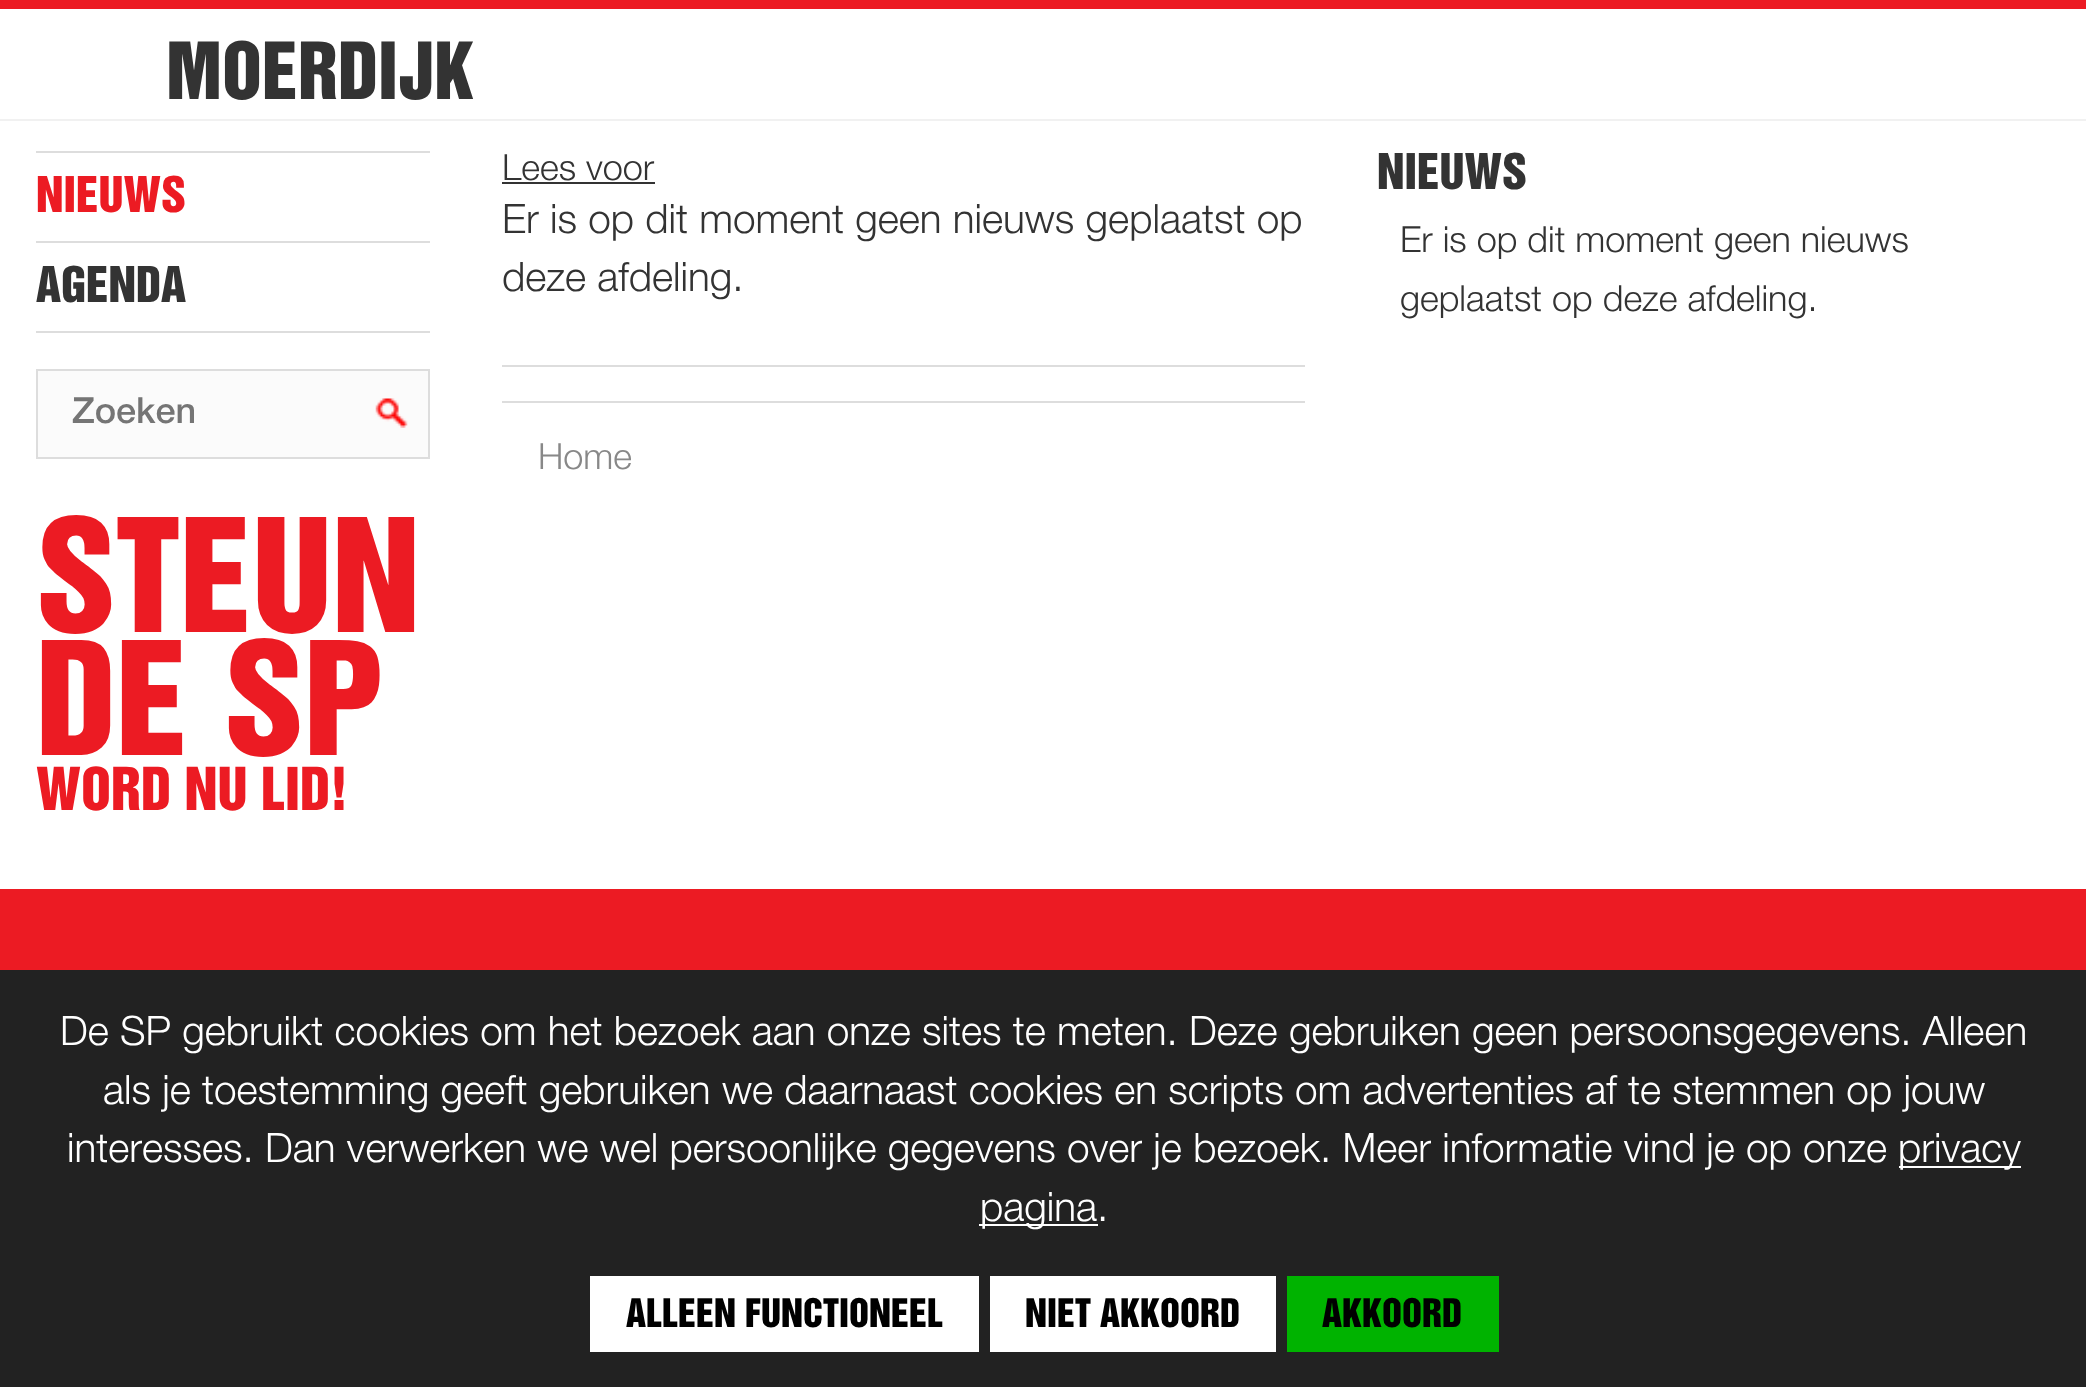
<svg xmlns="http://www.w3.org/2000/svg" width="2086" height="1387" viewBox="0 0 2086 1387">
  <rect width="100%" height="100%" fill="rgb(255,255,255)"/>
  <rect x="0" y="0" width="2086" height="9" fill="rgb(236,27,35)"/>
  <rect x="0" y="119" width="2086" height="2" fill="rgb(241,241,241)"/>
  <text x="166" y="99" font-family="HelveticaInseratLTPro" font-size="72" fill="rgb(51,51,51)">MOERDIJK</text>
  <rect x="36" y="331" width="394" height="2" fill="rgb(221,221,221)"/>
  <rect x="36" y="151" width="394" height="2" fill="rgb(221,221,221)"/>
  <text x="36" y="212" font-family="HelveticaInseratLTPro" font-size="45" fill="rgb(236,27,35)">NIEUWS</text>
  <rect x="36" y="241" width="394" height="2" fill="rgb(221,221,221)"/>
  <text x="36" y="302" font-family="HelveticaInseratLTPro" font-size="45" fill="rgb(51,51,51)">AGENDA</text>
  <rect x="37" y="370" width="392" height="88" fill="rgb(251,251,251)" stroke="rgb(221,221,221)" stroke-width="2"/>
  <text x="72" y="423" font-family="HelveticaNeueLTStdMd" font-size="36" font-weight="500" fill="rgb(117,117,117)">Zoeken</text>
  <image x="375" y="398" width="33" height="30" href="pic1.png"/>
  <g font-family="HelveticaInseratLTPro" font-size="144" fill="rgb(236,27,35)">
    <text>
      <tspan x="36" y="632">STEUN</tspan>
      <tspan x="36" y="755">DE SP</tspan>
    </text>
  </g>
  <text x="36" y="810" font-family="HelveticaInseratLTPro" font-size="54" fill="rgb(236,27,35)">WORD NU LID!</text>
  <text x="502" y="180" font-family="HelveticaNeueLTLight" font-size="36" font-weight="300" fill="rgb(51,51,51)">Lees voor</text>
  <rect x="502" y="182" width="153" height="2" fill="rgb(51,51,51)"/>
  <g font-family="HelveticaNeueLTLight" font-size="40.5" font-weight="300" fill="rgb(51,51,51)">
    <text>
      <tspan x="502" y="233">Er is op dit moment geen nieuws geplaatst op</tspan>
      <tspan x="502" y="291">deze afdeling.</tspan>
    </text>
  </g>
  <rect x="502" y="365" width="803" height="2" fill="rgb(221,221,221)"/>
  <rect x="502" y="401" width="803" height="2" fill="rgb(221,221,221)"/>
  <text x="538" y="469" font-family="HelveticaNeueLTLight" font-size="36" font-weight="300" fill="rgb(136,136,136)">Home</text>
  <text x="1377" y="189" font-family="HelveticaInseratLTPro" font-size="45" fill="rgb(51,51,51)">NIEUWS</text>
  <g font-family="HelveticaNeueLTLight" font-size="36" font-weight="300" fill="rgb(51,51,51)">
    <text>
      <tspan x="1400" y="252">Er is op dit moment geen nieuws</tspan>
      <tspan x="1400" y="311">geplaatst op deze afdeling.</tspan>
    </text>
  </g>
  <rect x="0" y="889" width="2086" height="81" fill="rgb(236,27,35)"/>
  <rect x="0" y="970" width="2086" height="417" fill="rgb(34,34,34)"/>
  <g font-family="HelveticaNeueLTLight" font-size="40.5" font-weight="300" fill="rgb(255,255,255)">
    <text x="60" y="1045">De SP gebruikt cookies om het bezoek aan onze sites te meten. Deze gebruiken geen persoonsgegevens. Alleen</text>
    <text x="103" y="1104">als je toestemming geeft gebruiken we daarnaast cookies en scripts om advertenties af te stemmen op jouw</text>
    <text x="67" y="1162">interesses. Dan verwerken we wel persoonlijke gegevens over je bezoek. Meer informatie vind je op onze</text>
  </g>
  <rect x="1899" y="1166" width="122" height="2" fill="rgb(255,255,255)"/>
  <text x="1898" y="1162" font-family="HelveticaNeueLTLight" font-size="40.5" font-weight="300" fill="rgb(255,255,255)">privacy</text>
  <rect x="979" y="1224" width="119" height="2" fill="rgb(255,255,255)"/>
  <text x="980" y="1221" font-family="HelveticaNeueLTLight" font-size="40.5" font-weight="300" fill="rgb(255,255,255)">pagina.</text>
  <rect x="590" y="1276" width="389" height="76" fill="rgb(255,255,255)"/>
  <text x="626" y="1327" font-family="HelveticaInseratLTPro" font-size="36" fill="rgb(0,0,0)">ALLEEN FUNCTIONEEL</text>
  <rect x="990" y="1276" width="286" height="76" fill="rgb(255,255,255)"/>
  <text x="1025" y="1327" font-family="HelveticaInseratLTPro" font-size="36" fill="rgb(0,0,0)">NIET AKKOORD</text>
  <rect x="1287" y="1276" width="212" height="76" fill="rgb(0,179,0)"/>
  <text x="1322" y="1327" font-family="HelveticaInseratLTPro" font-size="36" fill="rgb(0,0,0)">AKKOORD</text>
</svg>
